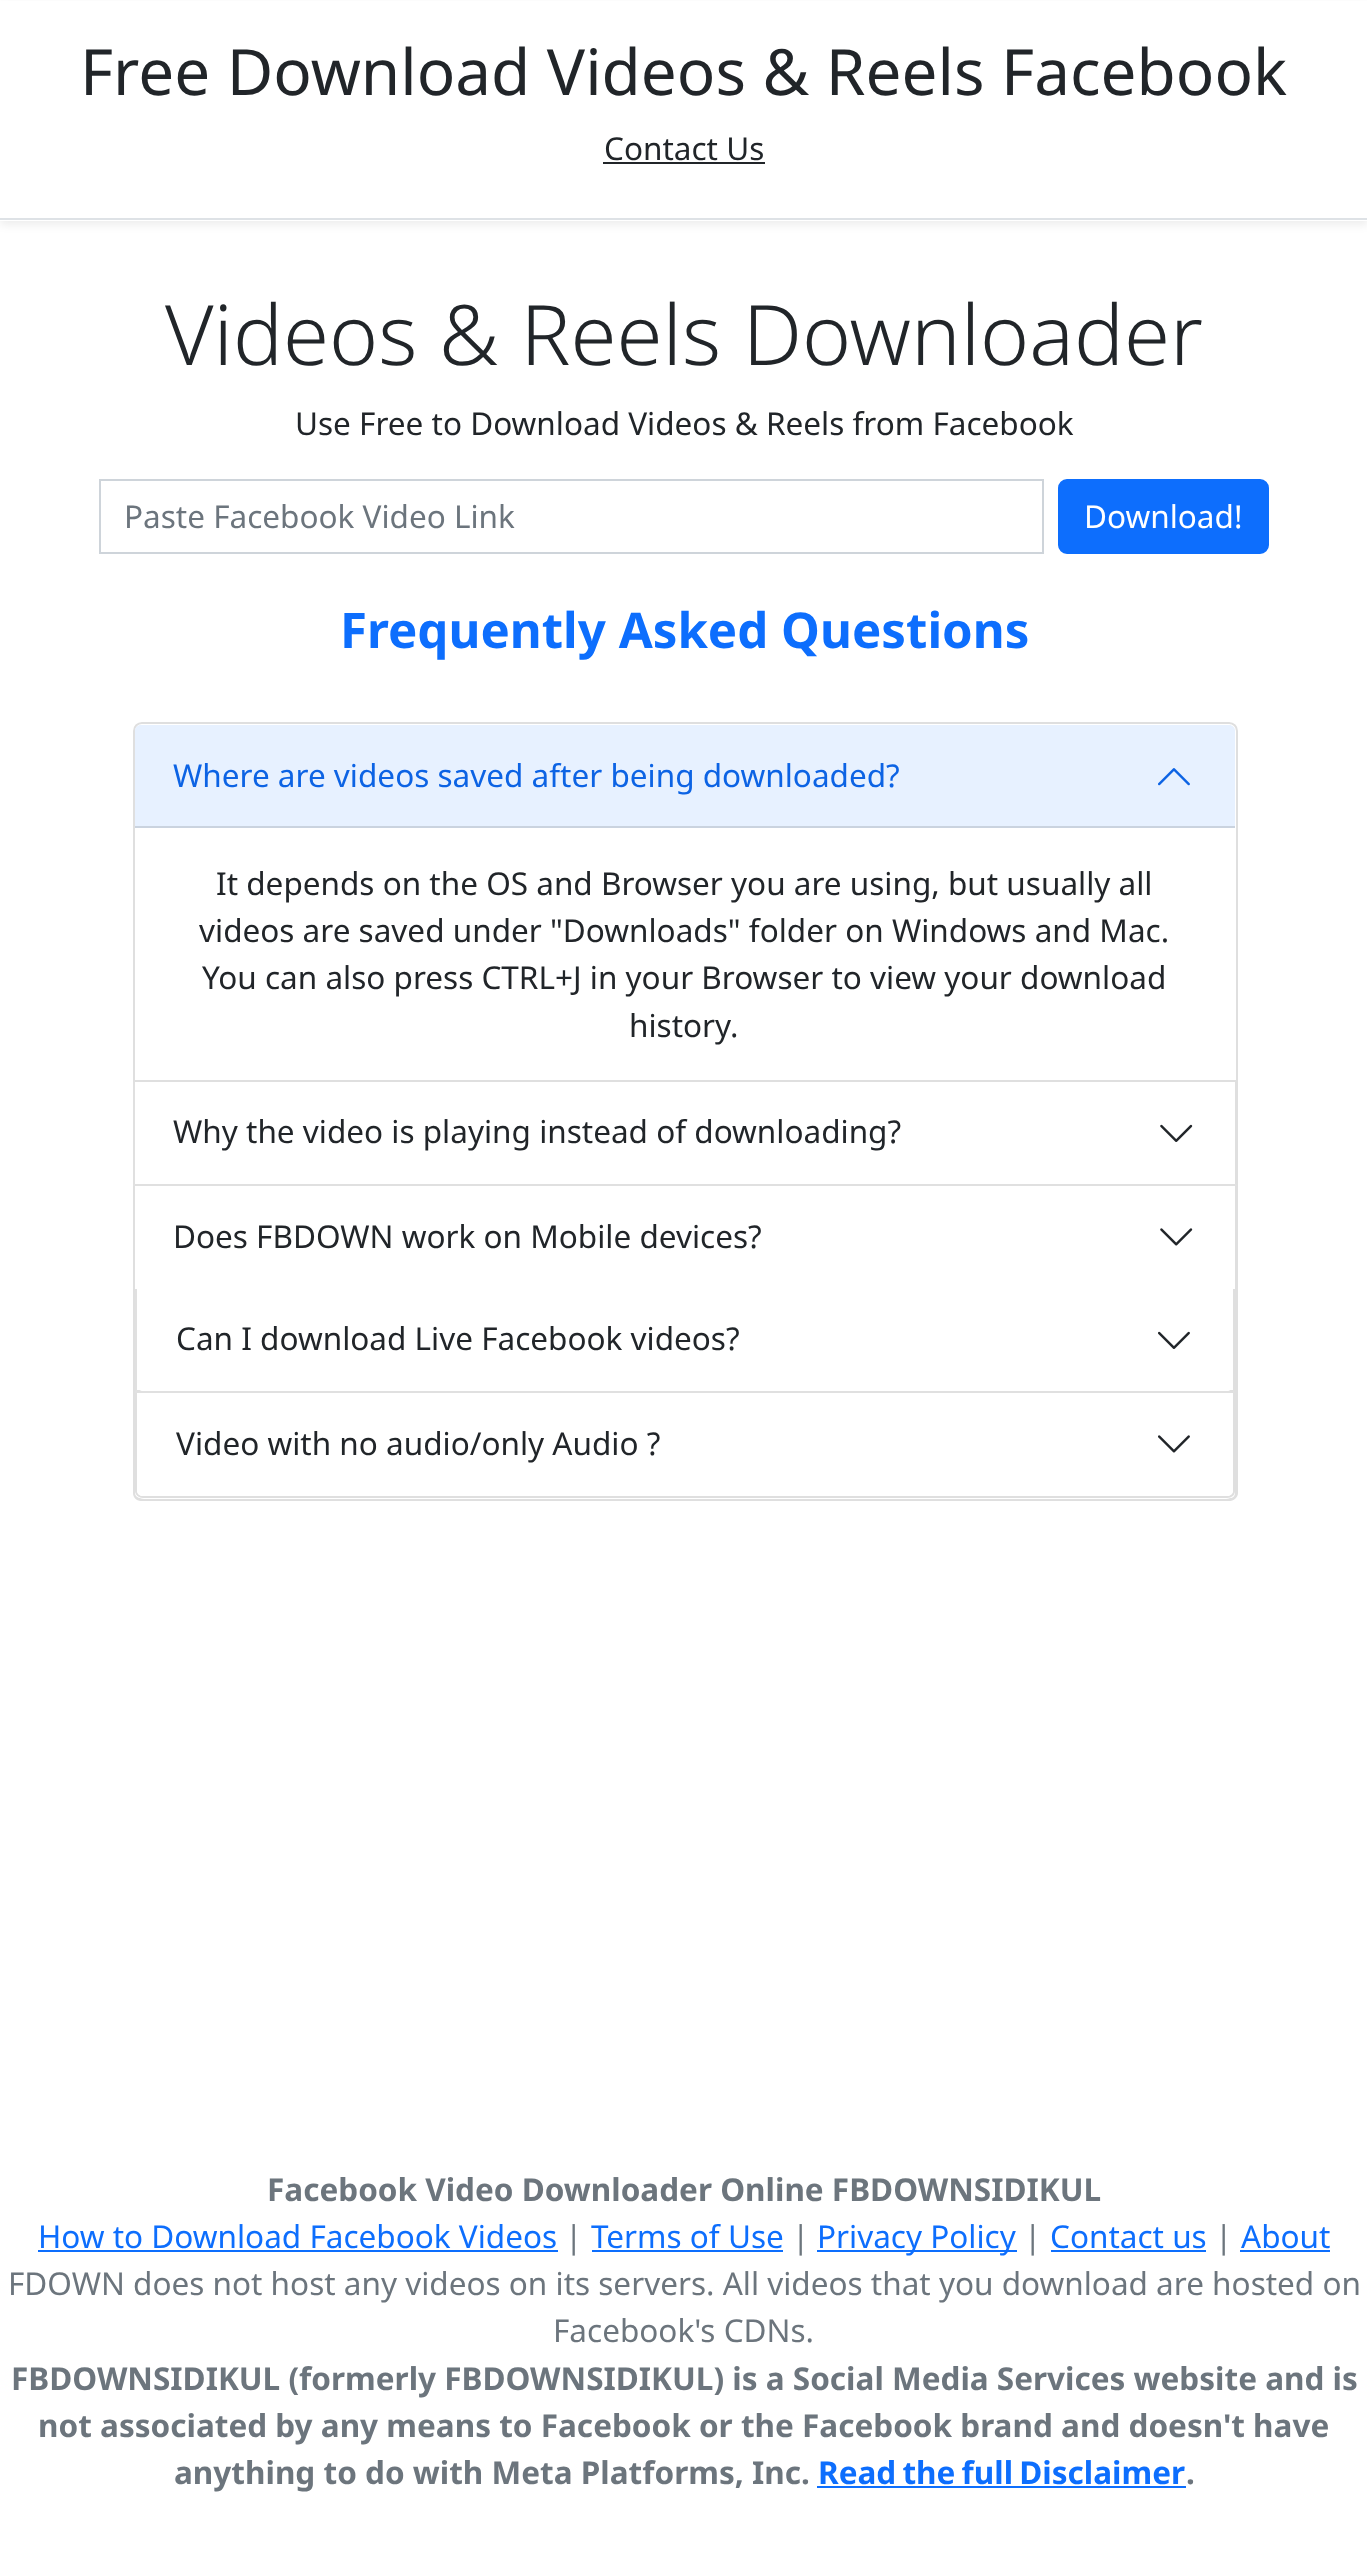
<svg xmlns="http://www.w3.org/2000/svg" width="1367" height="2557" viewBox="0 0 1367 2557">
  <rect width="100%" height="100%" fill="rgb(255,255,255)"/>
  <rect x="0" y="5" width="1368" height="220" fill="rgba(0,0,0,0.07)" filter="blur(4px)"/>
  <rect x="0" y="1" width="1367" height="220" fill="rgb(255,255,255)"/>
  <rect x="0" y="218" width="1367" height="2" fill="rgb(222,226,230)"/>
  <text x="80" y="95" font-family="Noto Sans" font-size="63.8" fill="rgb(33,37,41)">Free Download Videos &amp; Reels Facebook</text>
  <text x="604" y="160" font-family="Noto Sans" font-size="31.5" fill="rgb(33,37,41)">Contact Us</text>
  <rect x="603" y="162" width="162" height="2" fill="rgb(33,37,41)"/>
  <text x="165" y="365" font-family="Noto Sans" font-size="83.4" font-weight="300" fill="rgb(33,37,41)">Videos &amp; Reels Downloader</text>
  <text x="295" y="435" font-family="Noto Sans" font-size="31.5" fill="rgb(33,37,41)">Use Free to Download Videos &amp; Reels from Facebook</text>
  <rect x="100" y="480" width="943" height="73" fill="none" stroke="rgb(206,212,218)" stroke-width="2"/>
  <text x="124" y="528" font-family="Noto Sans" font-size="31.5" fill="rgb(108,117,125)">Paste Facebook Video Link</text>
  <rect x="1059" y="480" width="209" height="73" rx="8" fill="rgb(13,110,253)" stroke="rgb(13,110,253)" stroke-width="2"/>
  <text x="1084" y="528" font-family="Noto Sans" font-size="31.5" fill="rgb(255,255,255)">Download!</text>
  <text x="340" y="648" font-family="Noto Sans" font-size="49.2" font-weight="bold" fill="rgb(13,110,253)">Frequently Asked Questions</text>
  <path d="M142 723H1229C1233.5 723 1237 726.5 1237 731V1081H134V731C134 726.5 137.5 723 142 723Z" fill="none" stroke="rgb(223,223,223)" stroke-width="2"/>
  <path d="M141 725H1229C1232.5 725 1235 727.5 1235 731V828H135V731C135 727.5 137.5 725 141 725Z" fill="rgb(231,241,255)"/>
  <rect x="135" y="826" width="1100" height="2" fill="rgb(202,211,223)"/>
  <text x="173" y="787" font-family="Noto Sans" font-size="31.5" fill="rgb(12,99,228)">Where are videos saved after being downloaded?</text>
  <image x="1158" y="768" width="32" height="18" href="pic1.png"/>
  <g font-family="Noto Sans" font-size="31.5" fill="rgb(33,37,41)">
    <text x="216" y="895">It depends on the OS and Browser you are using, but usually all</text>
    <text x="199" y="942">videos are saved under "Downloads" folder on Windows and Mac.</text>
    <text x="202" y="989">You can also press CTRL+J in your Browser to view your download</text>
    <text x="629" y="1037">history.</text>
  </g>
  <path d="M1238 1082V1186L1235 1184V1082Z" fill="rgb(223,223,223)"/>
  <path d="M1238 1186H133L135 1184H1235Z" fill="rgba(0,0,0,0.12)"/>
  <path d="M133 1186V1082H135V1184Z" fill="rgba(0,0,0,0.12)"/>
  <text x="173" y="1143" font-family="Noto Sans" font-size="31.5" fill="rgb(33,37,41)">Why the video is playing instead of downloading?</text>
  <image x="1160" y="1124" width="33" height="18" href="pic2.png"/>
  <path d="M133 1186H1238V1493C1238 1497 1234 1501 1230 1501H141C136 1501 133 1497 133 1493ZM135 1186H1235V1493C1235 1496 1233 1498 1230 1498H141C138 1498 135 1496 135 1493Z" fill="rgb(223,223,223)" fill-rule="evenodd"/>
  <text x="173" y="1248" font-family="Noto Sans" font-size="31.5" fill="rgb(33,37,41)">Does FBDOWN work on Mobile devices?</text>
  <image x="1160" y="1228" width="33" height="18" href="pic3.png"/>
  <path d="M1235 1289V1393L1233 1390V1289Z" fill="rgb(223,223,223)"/>
  <path d="M1235 1393H135L137 1390H1233Z" fill="rgba(0,0,0,0.12)"/>
  <path d="M135 1393V1289H137V1390Z" fill="rgba(0,0,0,0.12)"/>
  <path d="M137 1289H1233V1385C1233 1388.5 1230.5 1391 1227 1391H143C139.5 1391 137 1388.5 137 1385Z" fill="rgb(255,255,255)"/>
  <text x="176" y="1350" font-family="Noto Sans" font-size="31.5" fill="rgb(33,37,41)">Can I download Live Facebook videos?</text>
  <image x="1158" y="1331" width="32" height="18" href="pic4.png"/>
  <path d="M135 1393H1235V1490C1235 1495 1231 1499 1226 1499H144C139 1499 135 1495 135 1490Z" fill="rgb(255,255,255)"/>
  <path d="M135 1393H1235V1491C1235 1495 1232 1498 1227 1498H143C139 1498 135 1495 135 1491ZM137 1393H1233V1491C1233 1494 1230 1496 1227 1496H143C140 1496 137 1494 137 1491Z" fill="rgb(223,223,223)" fill-rule="evenodd"/>
  <path d="M137 1393H1233V1490C1233 1493.5 1230.5 1496 1227 1496H143C139.5 1496 137 1493.5 137 1490Z" fill="rgb(255,255,255)"/>
  <text x="176" y="1455" font-family="Noto Sans" font-size="31.5" fill="rgb(33,37,41)">Video with no audio/only Audio ?</text>
  <image x="1158" y="1435" width="32" height="18" href="pic5.png"/>
  <text x="267" y="2201" font-family="Noto Sans" font-size="31.5" font-weight="bold" fill="rgb(108,117,125)">Facebook Video Downloader Online FBDOWNSIDIKUL</text>
  <text x="38" y="2248" font-family="Noto Sans" font-size="31.5" fill="rgb(13,110,253)">How to Download Facebook Videos</text>
  <rect x="38" y="2250" width="520" height="2" fill="rgb(13,110,253)"/>
  <text x="565" y="2248" font-family="Noto Sans" font-size="31.5" fill="rgb(108,117,125)">|</text>
  <text x="591" y="2248" font-family="Noto Sans" font-size="31.5" fill="rgb(13,110,253)">Terms of Use</text>
  <rect x="592" y="2250" width="191" height="2" fill="rgb(13,110,253)"/>
  <text x="792" y="2248" font-family="Noto Sans" font-size="31.5" fill="rgb(108,117,125)">|</text>
  <rect x="817" y="2250" width="200" height="2" fill="rgb(13,110,253)"/>
  <text x="817" y="2248" font-family="Noto Sans" font-size="31.5" fill="rgb(13,110,253)">Privacy Policy</text>
  <text x="1024" y="2248" font-family="Noto Sans" font-size="31.5" fill="rgb(108,117,125)">|</text>
  <text x="1050" y="2248" font-family="Noto Sans" font-size="31.5" fill="rgb(13,110,253)">Contact us</text>
  <rect x="1051" y="2250" width="155" height="2" fill="rgb(13,110,253)"/>
  <text x="1215" y="2248" font-family="Noto Sans" font-size="31.5" fill="rgb(108,117,125)">|</text>
  <text x="1241" y="2248" font-family="Noto Sans" font-size="31.5" fill="rgb(13,110,253)">About</text>
  <rect x="1240" y="2250" width="90" height="2" fill="rgb(13,110,253)"/>
  <g font-family="Noto Sans" font-size="31.5" fill="rgb(108,117,125)">
    <text x="8" y="2295">FDOWN does not host any videos on its servers. All videos that you download are hosted on</text>
    <text x="553" y="2342">Facebook's CDNs.</text>
  </g>
  <g font-family="Noto Sans" font-size="31.5" font-weight="bold" fill="rgb(108,117,125)">
    <text x="11" y="2390">FBDOWNSIDIKUL (formerly FBDOWNSIDIKUL) is a Social Media Services website and is</text>
    <text x="38" y="2437">not associated by any means to Facebook or the Facebook brand and doesn't have</text>
    <text x="174" y="2484">anything to do with Meta Platforms, Inc.</text>
  </g>
  <text x="818" y="2484" word-spacing="-2" font-family="Noto Sans" font-size="31.5" font-weight="bold" fill="rgb(13,110,253)">Read the full Disclaimer</text>
  <text x="1186" y="2484" font-family="Noto Sans" font-size="31.5" font-weight="bold" fill="rgb(108,117,125)">.</text>
  <rect x="817" y="2486" width="369" height="2" fill="rgb(13,110,253)"/>
</svg>
